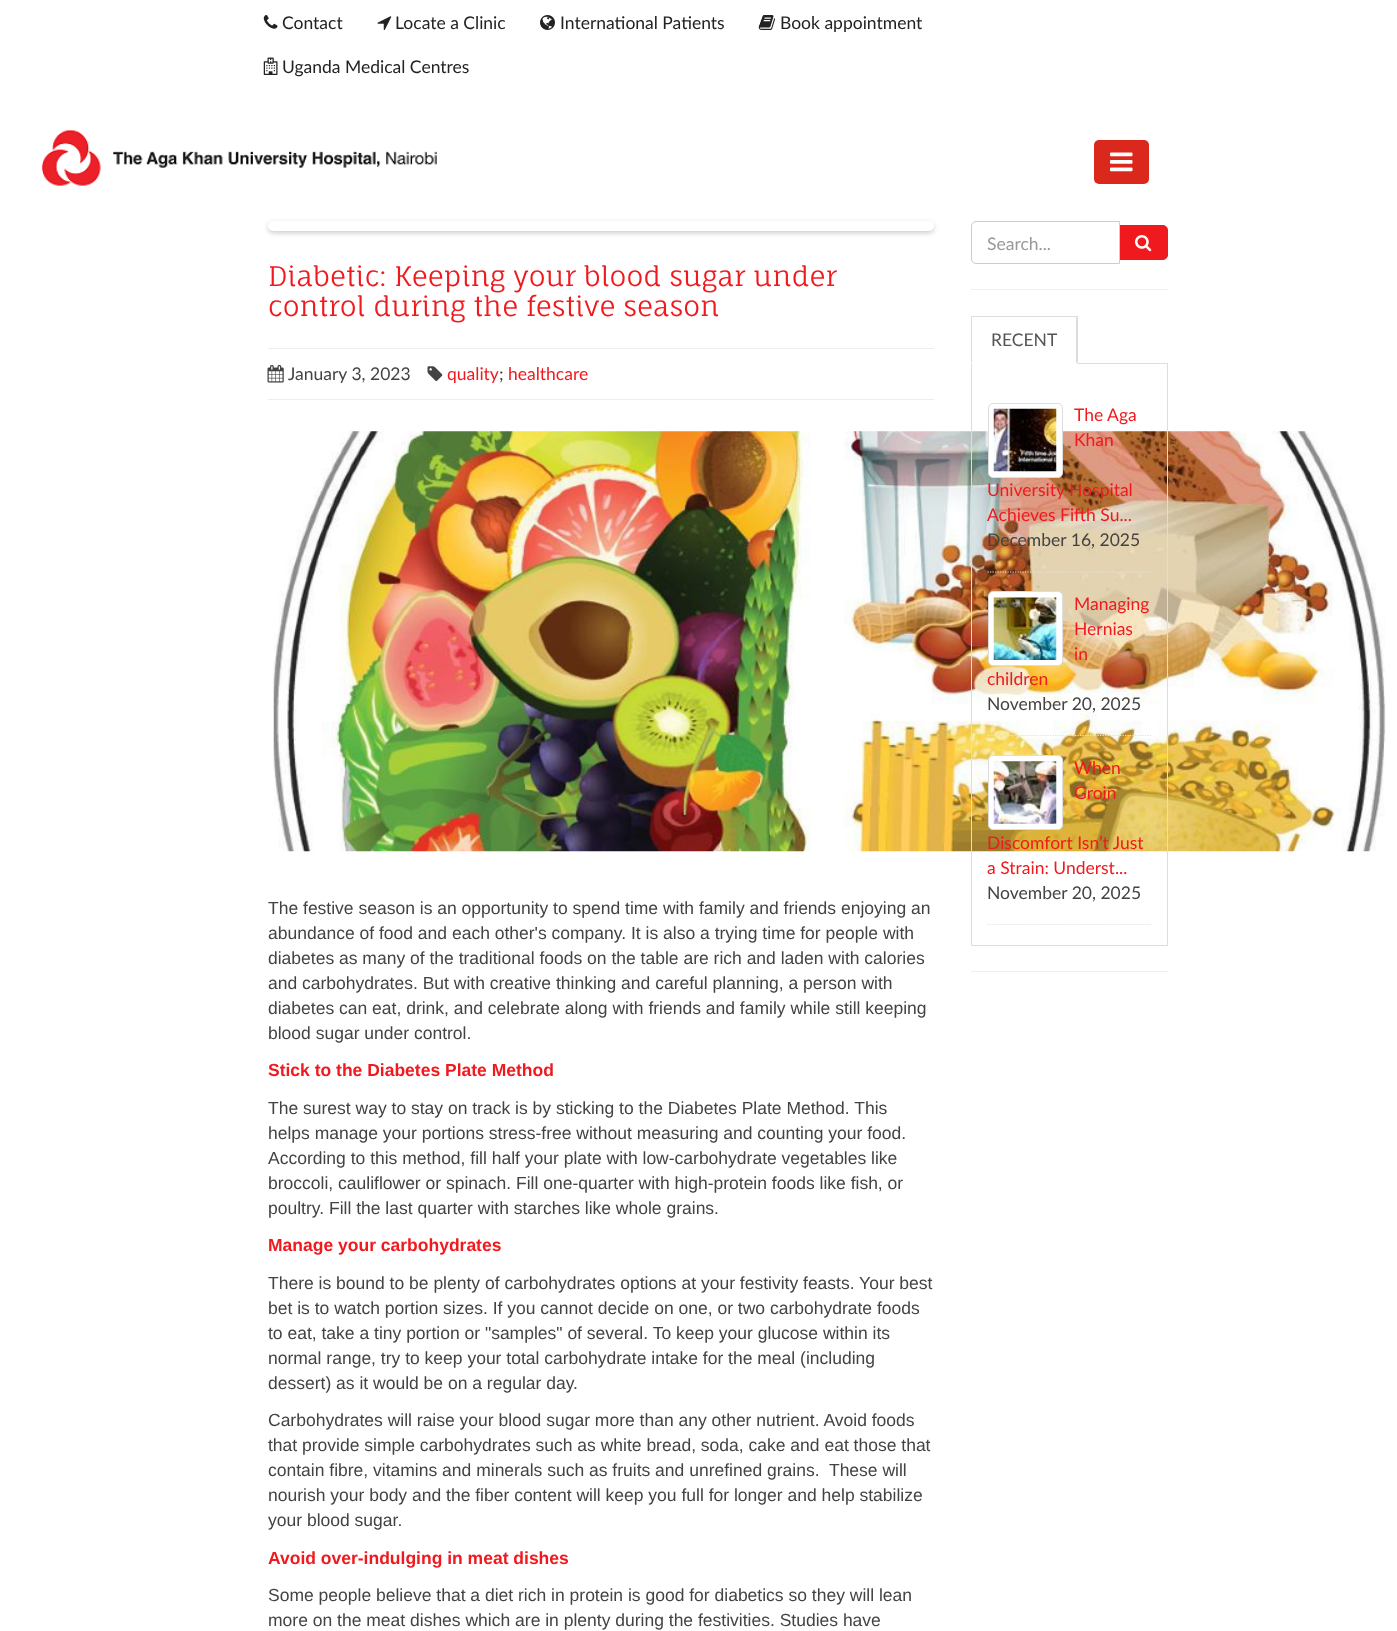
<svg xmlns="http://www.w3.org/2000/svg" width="1397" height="1631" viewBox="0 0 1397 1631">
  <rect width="100%" height="100%" fill="rgb(255,255,255)"/>
  <image x="263" y="15" width="15" height="14" href="pic1.png"/>
  <text x="282" y="29" font-family="Lato" font-size="17.5" fill="rgb(34,34,34)">Contact</text>
  <image x="377" y="16" width="15" height="14" href="pic2.png"/>
  <text x="395" y="29" font-family="Lato" font-size="17.5" fill="rgb(34,34,34)">Locate a Clinic</text>
  <image x="540" y="15" width="15" height="15" href="pic3.png"/>
  <text x="560" y="29" font-family="Lato" font-size="17.5" fill="rgb(34,34,34)">International Patients</text>
  <image x="758" y="15" width="17" height="15" href="pic4.png"/>
  <text x="780" y="29" font-family="Lato" font-size="17.5" fill="rgb(34,34,34)">Book appointment</text>
  <image x="263" y="57" width="15" height="18" href="pic5.png"/>
  <text x="282" y="73" font-family="Lato" font-size="17.5" fill="rgb(34,34,34)">Uganda Medical Centres</text>
  <image x="41" y="129" width="396" height="57" href="pic6.png"/>
  <rect x="1094" y="140" width="55" height="44" rx="5" fill="rgb(218,41,28)"/>
  <image x="1110" y="152" width="23" height="20" href="pic7.png"/>
  <rect x="268" y="223" width="666" height="10" rx="5" fill="rgba(0,0,0,0.2)" filter="blur(2.5px)"/>
  <rect x="268" y="221" width="666" height="10" rx="5" fill="rgb(255,255,255)"/>
  <g font-family="Fauna One" font-size="27.1" fill="rgb(240,25,30)">
    <text>
      <tspan x="268" y="286">Diabetic: Keeping your blood sugar under</tspan>
      <tspan x="268" y="316">control during the festive season</tspan>
    </text>
  </g>
  <rect x="268" y="348" width="666" height="1" fill="rgb(238,238,238)"/>
  <rect x="268" y="399" width="666" height="1" fill="rgb(238,238,238)"/>
  <image x="267" y="365" width="17" height="18" href="pic8.png"/>
  <text x="288" y="380" font-family="Lato" font-size="17.5" fill="rgb(67,67,67)">January 3, 2023</text>
  <image x="427" y="366" width="16" height="15" href="pic9.png"/>
  <text x="447" y="380" font-family="Lato" font-size="17.5" fill="rgb(240,25,30)">quality</text>
  <text x="499" y="380" font-family="Lato" font-size="17.5" fill="rgb(67,67,67)">;</text>
  <text x="508" y="380" font-family="Lato" font-size="17.5" fill="rgb(240,25,30)">healthcare</text>
  <image x="273" y="431" width="1113" height="421" href="pic10.png"/>
  <g font-family="Liberation Sans" font-size="17.5" fill="rgb(67,67,67)">
    <text>
      <tspan x="268" y="914">The festive season is an opportunity to spend time with family and friends enjoying an</tspan>
      <tspan x="268" y="939">abundance of food and each other's company. It is also a trying time for people with</tspan>
      <tspan x="268" y="964">diabetes as many of the traditional foods on the table are rich and laden with calories</tspan>
      <tspan x="268" y="989">and carbohydrates. But with creative thinking and careful planning, a person with</tspan>
      <tspan x="268" y="1014">diabetes can eat, drink, and celebrate along with friends and family while still keeping</tspan>
      <tspan x="268" y="1039">blood sugar under control.</tspan>
    </text>
  </g>
  <text x="268" y="1076" font-family="Liberation Sans" font-size="17.5" font-weight="bold" fill="rgb(240,25,30)">Stick to the Diabetes Plate Method</text>
  <g font-family="Liberation Sans" font-size="17.5" fill="rgb(67,67,67)">
    <text>
      <tspan x="268" y="1114">The surest way to stay on track is by sticking to the Diabetes Plate Method. This</tspan>
      <tspan x="268" y="1139">helps manage your portions stress-free without measuring and counting your food.</tspan>
      <tspan x="268" y="1164">According to this method, fill half your plate with low-carbohydrate vegetables like</tspan>
      <tspan x="268" y="1189">broccoli, cauliflower or spinach. Fill one-quarter with high-protein foods like fish, or</tspan>
      <tspan x="268" y="1214">poultry. Fill the last quarter with starches like whole grains.</tspan>
    </text>
  </g>
  <text x="268" y="1251" font-family="Liberation Sans" font-size="17.5" font-weight="bold" fill="rgb(240,25,30)">Manage your carbohydrates</text>
  <g font-family="Liberation Sans" font-size="17.5" fill="rgb(67,67,67)">
    <text>
      <tspan x="268" y="1289">There is bound to be plenty of carbohydrates options at your festivity feasts. Your best</tspan>
      <tspan x="268" y="1314">bet is to watch portion sizes. If you cannot decide on one, or two carbohydrate foods</tspan>
      <tspan x="268" y="1339">to eat, take a tiny portion or "samples" of several. To keep your glucose within its</tspan>
      <tspan x="268" y="1364">normal range, try to keep your total carbohydrate intake for the meal (including</tspan>
      <tspan x="268" y="1389">dessert) as it would be on a regular day.</tspan>
    </text>
    <text xml:space="preserve"><tspan x="268" y="1426">Carbohydrates will raise your blood sugar more than any other nutrient. Avoid foods</tspan><tspan x="268" y="1451">that provide simple carbohydrates such as white bread, soda, cake and eat those that</tspan><tspan x="268" y="1476">contain fibre, vitamins and minerals such as fruits and unrefined grains.  These will</tspan><tspan x="268" y="1501">nourish your body and the fiber content will keep you full for longer and help stabilize</tspan><tspan x="268" y="1526">your blood sugar.</tspan></text>
  </g>
  <text x="268" y="1564" font-family="Liberation Sans" font-size="17.5" font-weight="bold" fill="rgb(240,25,30)">Avoid over-indulging in meat dishes</text>
  <g font-family="Liberation Sans" font-size="17.5" fill="rgb(67,67,67)">
    <text>
      <tspan x="268" y="1601">Some people believe that a diet rich in protein is good for diabetics so they will lean</tspan>
      <tspan x="268" y="1626">more on the meat dishes which are in plenty during the festivities. Studies have</tspan>
    </text>
  </g>
  <path d="M1119.5 225.5H1163C1165.5 225.5 1167.5 227.5 1167.5 230V255C1167.5 257.5 1165.5 259.5 1163 259.5H1119.5Z" fill="rgb(240,25,30)" stroke="rgb(240,25,30)"/>
  <path d="M976 221.5H1119.5V263.5H976C973.5 263.5 971.5 261.5 971.5 259V226C971.5 223.5 973.5 221.5 976 221.5Z" fill="rgb(255,255,255)" stroke="rgb(204,204,204)"/>
  <text x="987" y="250" font-family="Lato" font-size="17.5" fill="rgb(153,153,153)">Search...</text>
  <image x="1135" y="235" width="17" height="17" href="pic11.png"/>
  <rect x="971" y="289" width="197" height="1" fill="rgb(238,238,238)"/>
  <rect x="971.5" y="363.5" width="196" height="582" fill="none" stroke="rgb(221,221,221)"/>
  <rect x="971" y="363" width="107" height="1" fill="rgb(255,255,255)"/>
  <rect x="971" y="316" width="107" height="1" fill="rgb(221,221,221)"/>
  <path d="M1078 316V364L1076 362V318Z" fill="rgb(221,221,221)"/>
  <path d="M971 364V316L972 318V362Z" fill="rgb(221,221,221)"/>
  <text x="991" y="346" font-family="Lato" font-size="17.5" fill="rgb(85,85,85)">RECENT</text>
  <path d="M987.5 572H1151" fill="none" stroke="rgb(226,226,226)" stroke-width="1.2" stroke-dasharray="1.25 1.25"/>
  <rect x="988.5" y="403.5" width="74" height="74" rx="4.5" fill="rgb(255,255,255)" stroke="rgb(221,221,221)"/>
  <image x="993" y="408" width="64" height="64" href="pic12.png"/>
  <g font-family="Lato" font-size="17.5" fill="rgb(240,25,30)">
    <text>
      <tspan x="1074" y="421">The Aga</tspan>
      <tspan x="1074" y="446">Khan</tspan>
    </text>
    <text>
      <tspan x="987" y="496">University Hospital</tspan>
      <tspan x="987" y="521">Achieves Fifth Su...</tspan>
    </text>
  </g>
  <text x="987" y="546" font-family="Lato" font-size="17.5" fill="rgb(67,67,67)">December 16, 2025</text>
  <path d="M987.5 735.5H1151" fill="none" stroke="rgb(226,226,226)" stroke-width="1.2" stroke-dasharray="1.25 1.25"/>
  <rect x="988.5" y="591.5" width="74" height="74" rx="4.5" fill="rgb(255,255,255)" stroke="rgb(221,221,221)"/>
  <image x="993" y="597" width="64" height="63" href="pic13.png"/>
  <g font-family="Lato" font-size="17.5" fill="rgb(240,25,30)">
    <text>
      <tspan x="1074" y="610">Managing</tspan>
      <tspan x="1074" y="635">Hernias</tspan>
      <tspan x="1074" y="660">in</tspan>
    </text>
    <text x="987" y="685">children</text>
  </g>
  <text x="987" y="710" font-family="Lato" font-size="17.5" fill="rgb(67,67,67)">November 20, 2025</text>
  <path d="M987.5 924.5H1151" fill="none" stroke="rgb(226,226,226)" stroke-width="1.2" stroke-dasharray="1.25 1.25"/>
  <rect x="988.5" y="755.5" width="74" height="74" rx="4.5" fill="rgb(255,255,255)" stroke="rgb(221,221,221)"/>
  <image x="993" y="761" width="64" height="63" href="pic14.png"/>
  <g font-family="Lato" font-size="17.5" fill="rgb(240,25,30)">
    <text>
      <tspan x="1074" y="774">When</tspan>
      <tspan x="1074" y="799">Groin</tspan>
    </text>
    <text>
      <tspan x="987" y="849">Discomfort Isn’t Just</tspan>
      <tspan x="987" y="874">a Strain: Underst...</tspan>
    </text>
  </g>
  <text x="987" y="899" font-family="Lato" font-size="17.5" fill="rgb(67,67,67)">November 20, 2025</text>
  <rect x="971" y="971" width="197" height="1" fill="rgb(238,238,238)"/>
</svg>
